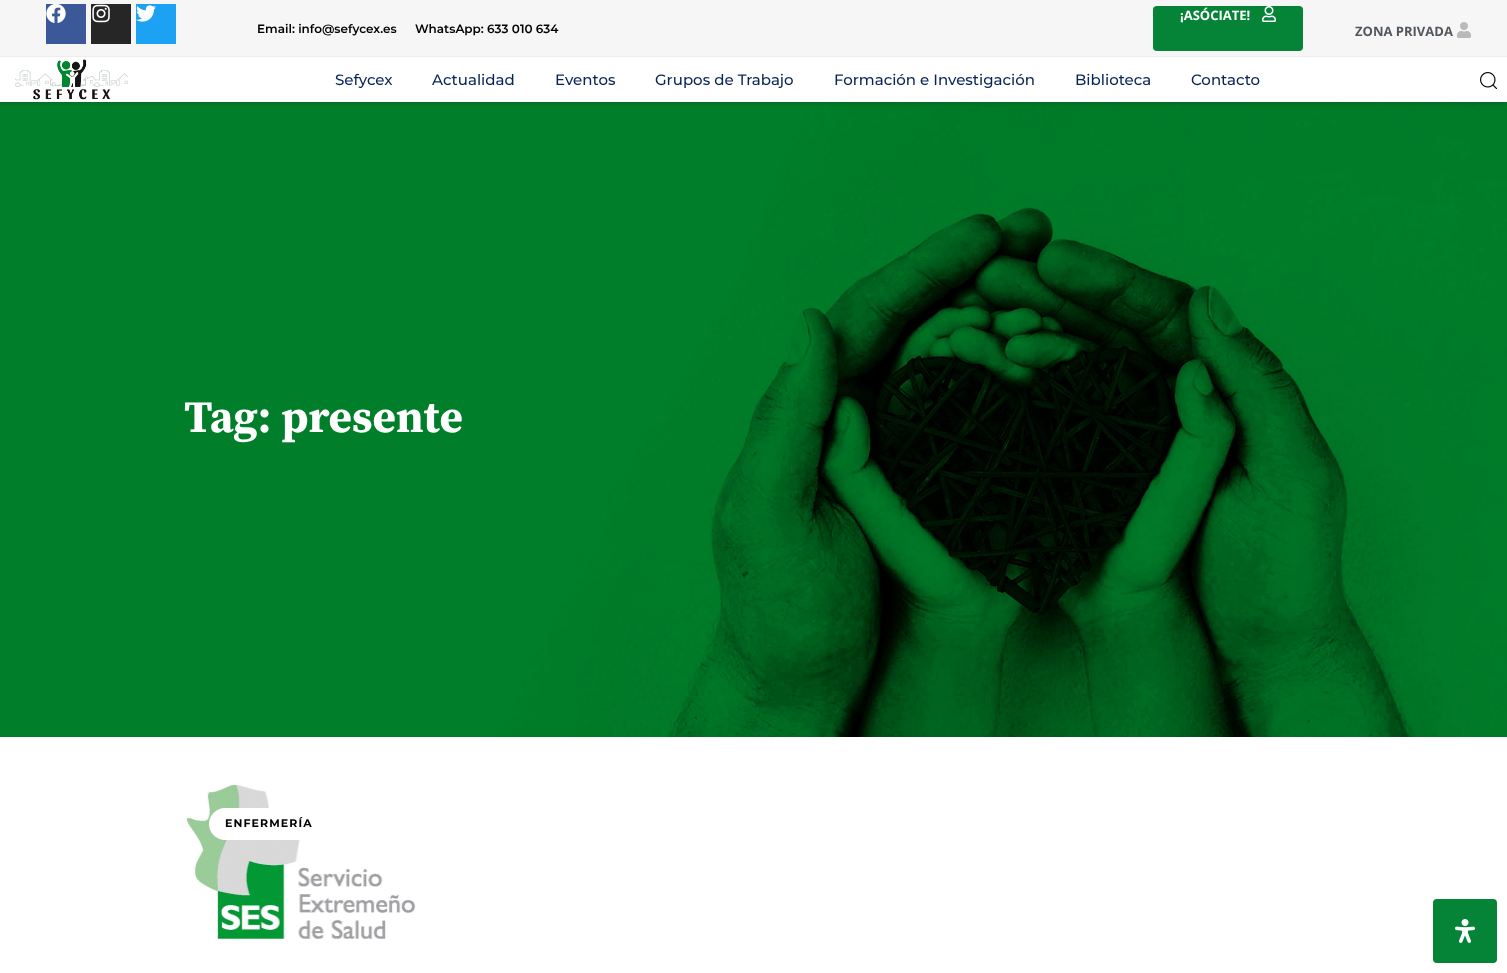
<svg xmlns="http://www.w3.org/2000/svg" width="1507" height="973" viewBox="0 0 1507 973">
  <defs>
    <clipPath id="clip1"><rect x="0" y="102" width="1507" height="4"/></clipPath>
  </defs>
  <rect width="100%" height="100%" fill="rgb(255,255,255)"/>
  <rect x="0" y="0" width="1507" height="56" fill="rgb(247,246,246)"/>
  <rect x="0" y="56" width="1507" height="1" fill="rgb(236,236,236)"/>
  <rect x="46" y="4" width="40" height="40" fill="rgb(59,89,152)"/>
  <image x="46" y="4" width="20" height="19" href="pic1.png"/>
  <rect x="91" y="4" width="40" height="40" fill="rgb(38,38,38)"/>
  <image x="92" y="4" width="18" height="19" href="pic2.png"/>
  <rect x="136" y="4" width="40" height="40" fill="rgb(29,161,242)"/>
  <image x="136" y="5" width="20" height="17" href="pic3.png"/>
  <rect x="1153" y="6" width="150" height="45" rx="4" fill="rgb(5,132,55)"/>
  <text x="1180" y="20" font-family="Open Sans" font-size="13" font-weight="bold" fill="rgb(255,255,255)">¡ASÓCIATE!</text>
  <image x="1262" y="6" width="14" height="16" href="pic4.png"/>
  <g font-family="Montserrat" font-size="12" font-weight="600" fill="rgb(0,0,0)">
    <text x="257" y="33">Email: info@sefycex.es</text>
    <text x="415" y="33">WhatsApp: 633 010 634</text>
  </g>
  <text x="1355" y="36" font-family="Open Sans" font-size="13" font-weight="bold" fill="rgb(81,87,92)">ZONA PRIVADA</text>
  <image x="1457" y="22" width="14" height="16" href="pic5.png"/>
  <image x="0" y="102" width="1507" height="635" href="pic8.png"/>
  <g clip-path="url(#clip1)">
    <rect x="0" y="59" width="1507" height="45" fill="rgba(0,0,0,0.13)" filter="blur(2px)"/>
  </g>
  <image x="15" y="59" width="113" height="41" href="pic6.png"/>
  <g font-family="Montserrat" font-size="15" font-weight="500" fill="rgb(9,37,88)">
    <text x="335" y="85">Sefycex</text>
    <text x="432" y="85">Actualidad</text>
    <text x="555" y="85">Eventos</text>
    <text x="655" y="85">Grupos de Trabajo</text>
    <text x="834" y="85">Formación e Investigación</text>
    <text x="1075" y="85">Biblioteca</text>
    <text x="1191" y="85">Contacto</text>
  </g>
  <image x="1480" y="72" width="17" height="17" href="pic7.png"/>
  <text x="184" y="432" font-family="Source Serif Pro" font-size="45" font-weight="bold" fill="rgb(255,255,255)">Tag: presente</text>
  <image x="185" y="783" width="232" height="157" href="pic9.png"/>
  <rect x="209" y="808" width="119" height="32" rx="16" fill="rgb(255,255,255)"/>
  <text x="225" y="827" font-family="Montserrat" font-size="11" font-weight="bold" letter-spacing="1.1" fill="rgb(0,0,0)">ENFERMERÍA</text>
  <rect x="1433" y="899" width="64" height="64" rx="4" fill="rgb(5,132,55)"/>
  <image x="1455" y="919" width="20" height="24" href="pic10.png"/>
</svg>
